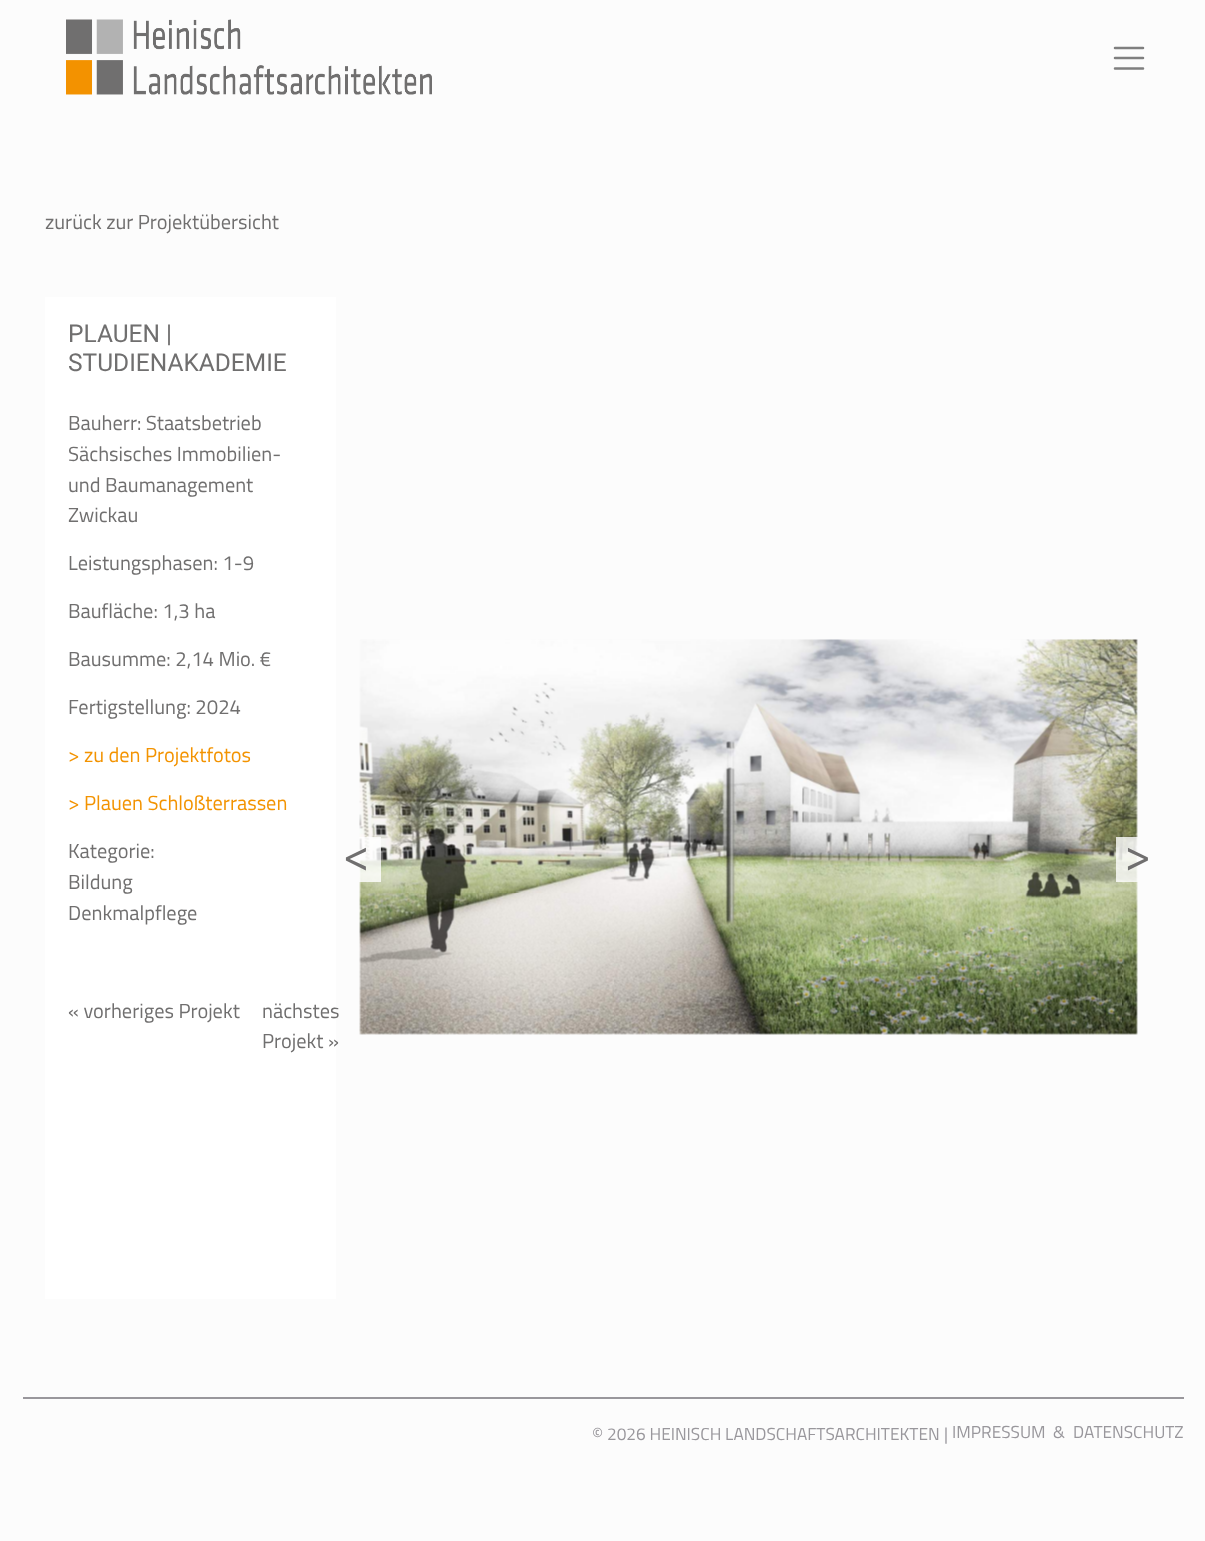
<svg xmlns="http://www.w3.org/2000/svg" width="1205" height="1541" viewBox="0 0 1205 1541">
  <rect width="100%" height="100%" fill="rgb(252,252,252)"/>
  <image x="66" y="19" width="366" height="76" href="pic1.png"/>
  <path d="M1115 48H1143M1115 58H1143M1115 68.5H1143" fill="none" stroke="rgb(127,127,127)" stroke-width="2.5" stroke-linecap="round"/>
  <text x="45" y="229" font-family="Titillium Web" font-size="20.4" fill="rgb(112,111,111)">zurück zur Projektübersicht</text>
  <rect x="45" y="297" width="291" height="1002" fill="rgb(255,255,255)"/>
  <g font-family="Roboto" font-size="24.5" fill="rgb(112,111,111)">
    <text>
      <tspan x="68" y="342">PLAUEN |</tspan>
      <tspan x="68" y="371">STUDIENAKADEMIE</tspan>
    </text>
  </g>
  <g font-family="Titillium Web" font-size="20.4" fill="rgb(112,111,111)">
    <text>
      <tspan x="68" y="430">Bauherr: Staatsbetrieb</tspan>
      <tspan x="68" y="461">Sächsisches Immobilien-</tspan>
      <tspan x="68" y="492">und Baumanagement</tspan>
      <tspan x="68" y="522">Zwickau</tspan>
    </text>
    <text x="68" y="570">Leistungsphasen: 1-9</text>
    <text x="68" y="618">Baufläche: 1,3 ha</text>
    <text x="68" y="666">Bausumme: 2,14 Mio. €</text>
    <text x="68" y="714">Fertigstellung: 2024</text>
  </g>
  <g font-family="Titillium Web" font-size="20.4" fill="rgb(243,147,0)">
    <text x="68" y="762">&gt; zu den Projektfotos</text>
    <text x="68" y="810">&gt; Plauen Schloßterrassen</text>
  </g>
  <g font-family="Titillium Web" font-size="20.4" fill="rgb(112,111,111)">
    <text>
      <tspan x="68" y="858">Kategorie:</tspan>
      <tspan x="68" y="889">Bildung</tspan>
      <tspan x="68" y="920">Denkmalpflege</tspan>
    </text>
    <text x="68" y="1018">« vorheriges Projekt</text>
    <text>
      <tspan x="262" y="1018">nächstes</tspan>
      <tspan x="262" y="1048">Projekt »</tspan>
    </text>
  </g>
  <image x="359" y="639" width="779" height="396" href="pic2.png"/>
  <rect x="359" y="837" width="22" height="45" fill="rgba(255,255,255,0.8)"/>
  <text x="343" y="871" font-family="Titillium Web" font-size="48" fill="rgb(112,111,111)">&lt;</text>
  <rect x="1116" y="837" width="22" height="45" fill="rgba(255,255,255,0.8)"/>
  <text x="1124" y="871" font-family="Titillium Web" font-size="48" fill="rgb(112,111,111)">&gt;</text>
  <rect x="23" y="1397" width="1161" height="2" fill="rgb(153,151,156)"/>
  <g font-family="Titillium Web" font-size="17.3" fill="rgb(153,151,156)">
    <text x="592" y="1440">© 2026 HEINISCH LANDSCHAFTSARCHITEKTEN</text>
    <text x="944" y="1440">|</text>
    <text x="952" y="1438">IMPRESSUM</text>
    <text x="1053" y="1438">&amp;</text>
    <text x="1073" y="1438">DATENSCHUTZ</text>
  </g>
</svg>
